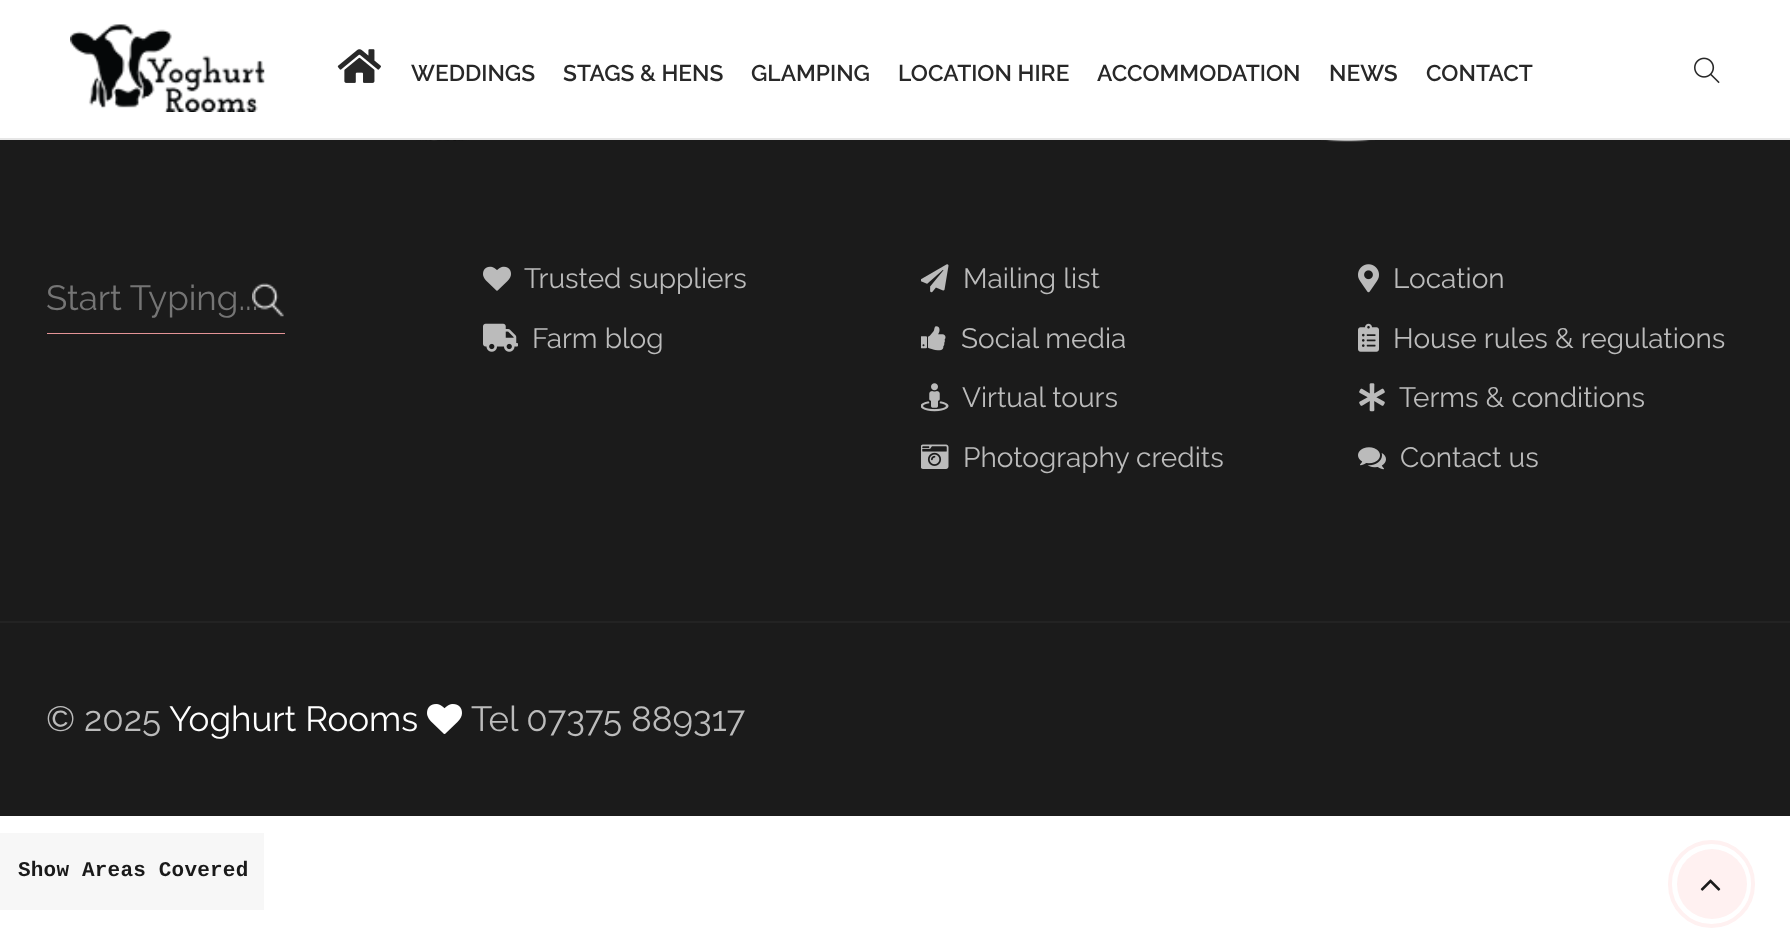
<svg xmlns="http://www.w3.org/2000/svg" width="1790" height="945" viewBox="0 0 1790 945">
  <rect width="100%" height="100%" fill="rgb(255,255,255)"/>
  <rect x="0" y="138" width="1790" height="2" fill="rgb(230,230,230)"/>
  <image x="70" y="24" width="195" height="88" href="pic1.png"/>
  <image x="337" y="49" width="44" height="34" href="pic2.png"/>
  <g font-family="Raleway" font-size="22.75" font-weight="600" fill="rgb(40,40,40)">
    <text x="411" y="81">WEDDINGS</text>
    <text x="563" y="81">STAGS &amp; HENS</text>
    <text x="751" y="81">GLAMPING</text>
    <text x="898" y="81">LOCATION HIRE</text>
    <text x="1097" y="81">ACCOMMODATION</text>
    <text x="1329" y="81">NEWS</text>
    <text x="1426" y="81">CONTACT</text>
  </g>
  <image x="1694" y="57" width="26" height="27" href="pic3.png"/>
  <rect x="0" y="140" width="1790" height="481" fill="rgb(27,27,27)"/>
  <image x="416" y="140" width="53" height="1" href="pic4.png"/>
  <image x="1321" y="140" width="54" height="2" href="pic5.png"/>
  <rect x="47" y="333" width="238" height="1" fill="rgb(228,148,151)"/>
  <text x="46" y="310" font-family="Raleway" font-size="35" fill="rgb(117,117,117)">Start Typing...</text>
  <image x="252" y="283" width="32" height="34" href="pic6.png"/>
  <image x="483" y="266" width="28" height="25" href="pic7.png"/>
  <text x="524" y="288" font-family="Raleway" font-size="28" fill="rgb(187,187,187)">Trusted suppliers</text>
  <image x="483" y="323" width="35" height="29" href="pic8.png"/>
  <text x="532" y="348" font-family="Raleway" font-size="28" fill="rgb(187,187,187)">Farm blog</text>
  <image x="921" y="264" width="28" height="29" href="pic9.png"/>
  <text x="963" y="288" font-family="Raleway" font-size="28" fill="rgb(187,187,187)">Mailing list</text>
  <image x="921" y="326" width="25" height="25" href="pic10.png"/>
  <text x="961" y="348" font-family="Raleway" font-size="28" fill="rgb(187,187,187)">Social media</text>
  <image x="921" y="383" width="28" height="29" href="pic11.png"/>
  <text x="962" y="407" font-family="Raleway" font-size="28" fill="rgb(187,187,187)">Virtual tours</text>
  <image x="921" y="444" width="28" height="25" href="pic12.png"/>
  <text x="963" y="467" font-family="Raleway" font-size="28" fill="rgb(187,187,187)">Photography credits</text>
  <image x="1358" y="264" width="21" height="29" href="pic13.png"/>
  <text x="1393" y="288" font-family="Raleway" font-size="28" fill="rgb(187,187,187)">Location</text>
  <image x="1358" y="323" width="21" height="29" href="pic14.png"/>
  <text x="1393" y="348" font-family="Raleway" font-size="28" fill="rgb(187,187,187)">House rules &amp; regulations</text>
  <image x="1359" y="383" width="26" height="29" href="pic15.png"/>
  <text x="1399" y="407" font-family="Raleway" font-size="28" fill="rgb(187,187,187)">Terms &amp; conditions</text>
  <image x="1358" y="447" width="28" height="23" href="pic16.png"/>
  <text x="1400" y="467" font-family="Raleway" font-size="28" fill="rgb(187,187,187)">Contact us</text>
  <rect x="0" y="621" width="1790" height="2" fill="rgb(35,35,35)"/>
  <rect x="0" y="623" width="1790" height="193" fill="rgb(27,27,27)"/>
  <text x="46" y="731" font-family="Raleway" font-size="35" fill="rgb(187,187,187)">© 2025</text>
  <text x="169" y="731" font-family="Raleway" font-size="35" fill="rgb(255,255,255)">Yoghurt Rooms</text>
  <image x="427" y="704" width="35" height="30" href="pic17.png"/>
  <text x="471" y="731" font-family="Raleway" font-size="35" fill="rgb(187,187,187)">Tel 07375 889317</text>
  <rect x="0" y="833" width="264" height="77" fill="rgb(247,247,247)"/>
  <text x="18" y="876" font-family="Liberation Mono" font-size="21" font-weight="bold" letter-spacing="0.2" fill="rgb(26,26,26)">Show Areas Covered</text>
  <rect x="1670" y="842" width="83" height="84" rx="41.5" fill="none" stroke="rgb(255,241,241)" stroke-width="4"/>
  <circle cx="1712" cy="884" r="35" fill="rgb(255,241,241)"/>
  <image x="1700" y="879" width="21" height="12" href="pic18.png"/>
</svg>
